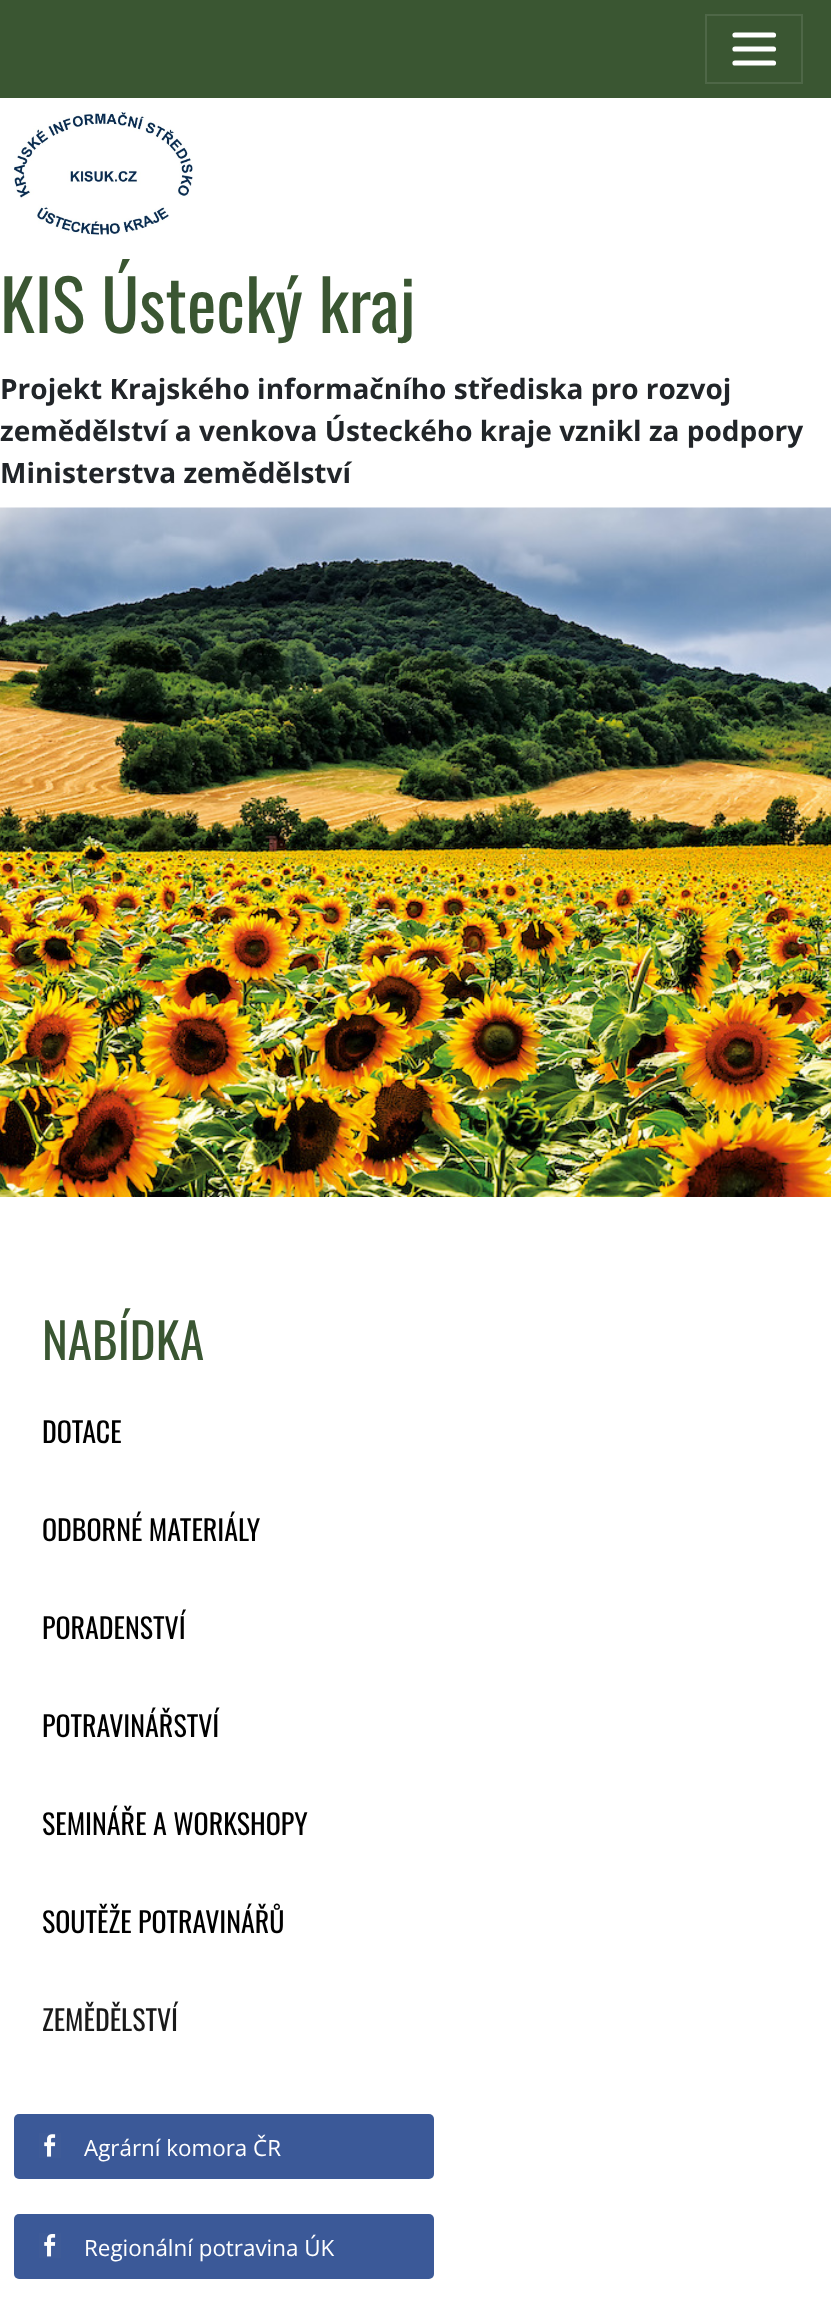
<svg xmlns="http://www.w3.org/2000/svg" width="831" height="2298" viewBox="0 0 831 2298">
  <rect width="100%" height="100%" fill="rgb(255,255,255)"/>
  <rect x="0" y="0" width="831" height="98" fill="rgb(58,86,50)"/>
  <rect x="706" y="15" width="96" height="68" fill="none" stroke="rgb(78,103,71)" stroke-width="2"/>
  <path d="M735 35H773.5M735 49H773.5M735 63H773.5" fill="none" stroke="rgb(255,255,255)" stroke-width="5.2" stroke-linecap="round"/>
  <image x="14" y="112" width="179" height="123" href="pic1.png"/>
  <text x="0" y="333" font-family="Oswald" font-size="70" fill="rgb(58,86,50)">KIS Ústecký kraj</text>
  <g font-family="Open Sans" font-size="28" font-weight="bold" fill="rgb(33,37,41)">
    <text>
      <tspan x="0" y="399">Projekt Krajského informačního střediska pro rozvoj</tspan>
      <tspan x="0" y="441">zemědělství a venkova Ústeckého kraje vznikl za podpory</tspan>
      <tspan x="0" y="483">Ministerstva zemědělství</tspan>
    </text>
  </g>
  <image x="0" y="507" width="831" height="690" href="pic2.png"/>
  <text x="42" y="1360" font-family="Oswald" font-size="49" fill="rgb(58,86,50)">NABÍDKA</text>
  <g font-family="Oswald" font-size="28" fill="rgb(0,0,0)">
    <text x="42" y="1443">DOTACE</text>
    <text x="42" y="1541">ODBORNÉ MATERIÁLY</text>
    <text x="42" y="1639">PORADENSTVÍ</text>
    <text x="42" y="1737">POTRAVINÁŘSTVÍ</text>
    <text x="42" y="1835">SEMINÁŘE A WORKSHOPY</text>
    <text x="42" y="1933">SOUTĚŽE POTRAVINÁŘŮ</text>
  </g>
  <text x="42" y="2031" font-family="Oswald" font-size="28" fill="rgb(26,26,26)">ZEMĚDĚLSTVÍ</text>
  <rect x="14" y="2114" width="420" height="65" rx="5" fill="rgb(59,89,152)"/>
  <rect x="39" y="2133" width="22" height="25" fill="rgb(62,91,152)"/>
  <image x="44" y="2134" width="12" height="23" href="pic3.png"/>
  <text x="84" y="2156" font-family="Open Sans" font-size="22.4" fill="rgb(255,255,255)">Agrární komora ČR</text>
  <rect x="14" y="2214" width="420" height="65" rx="5" fill="rgb(59,89,152)"/>
  <rect x="39" y="2233" width="22" height="25" fill="rgb(62,91,152)"/>
  <image x="44" y="2234" width="12" height="23" href="pic4.png"/>
  <text x="84" y="2256" font-family="Open Sans" font-size="22.4" fill="rgb(255,255,255)">Regionální potravina ÚK</text>
</svg>
